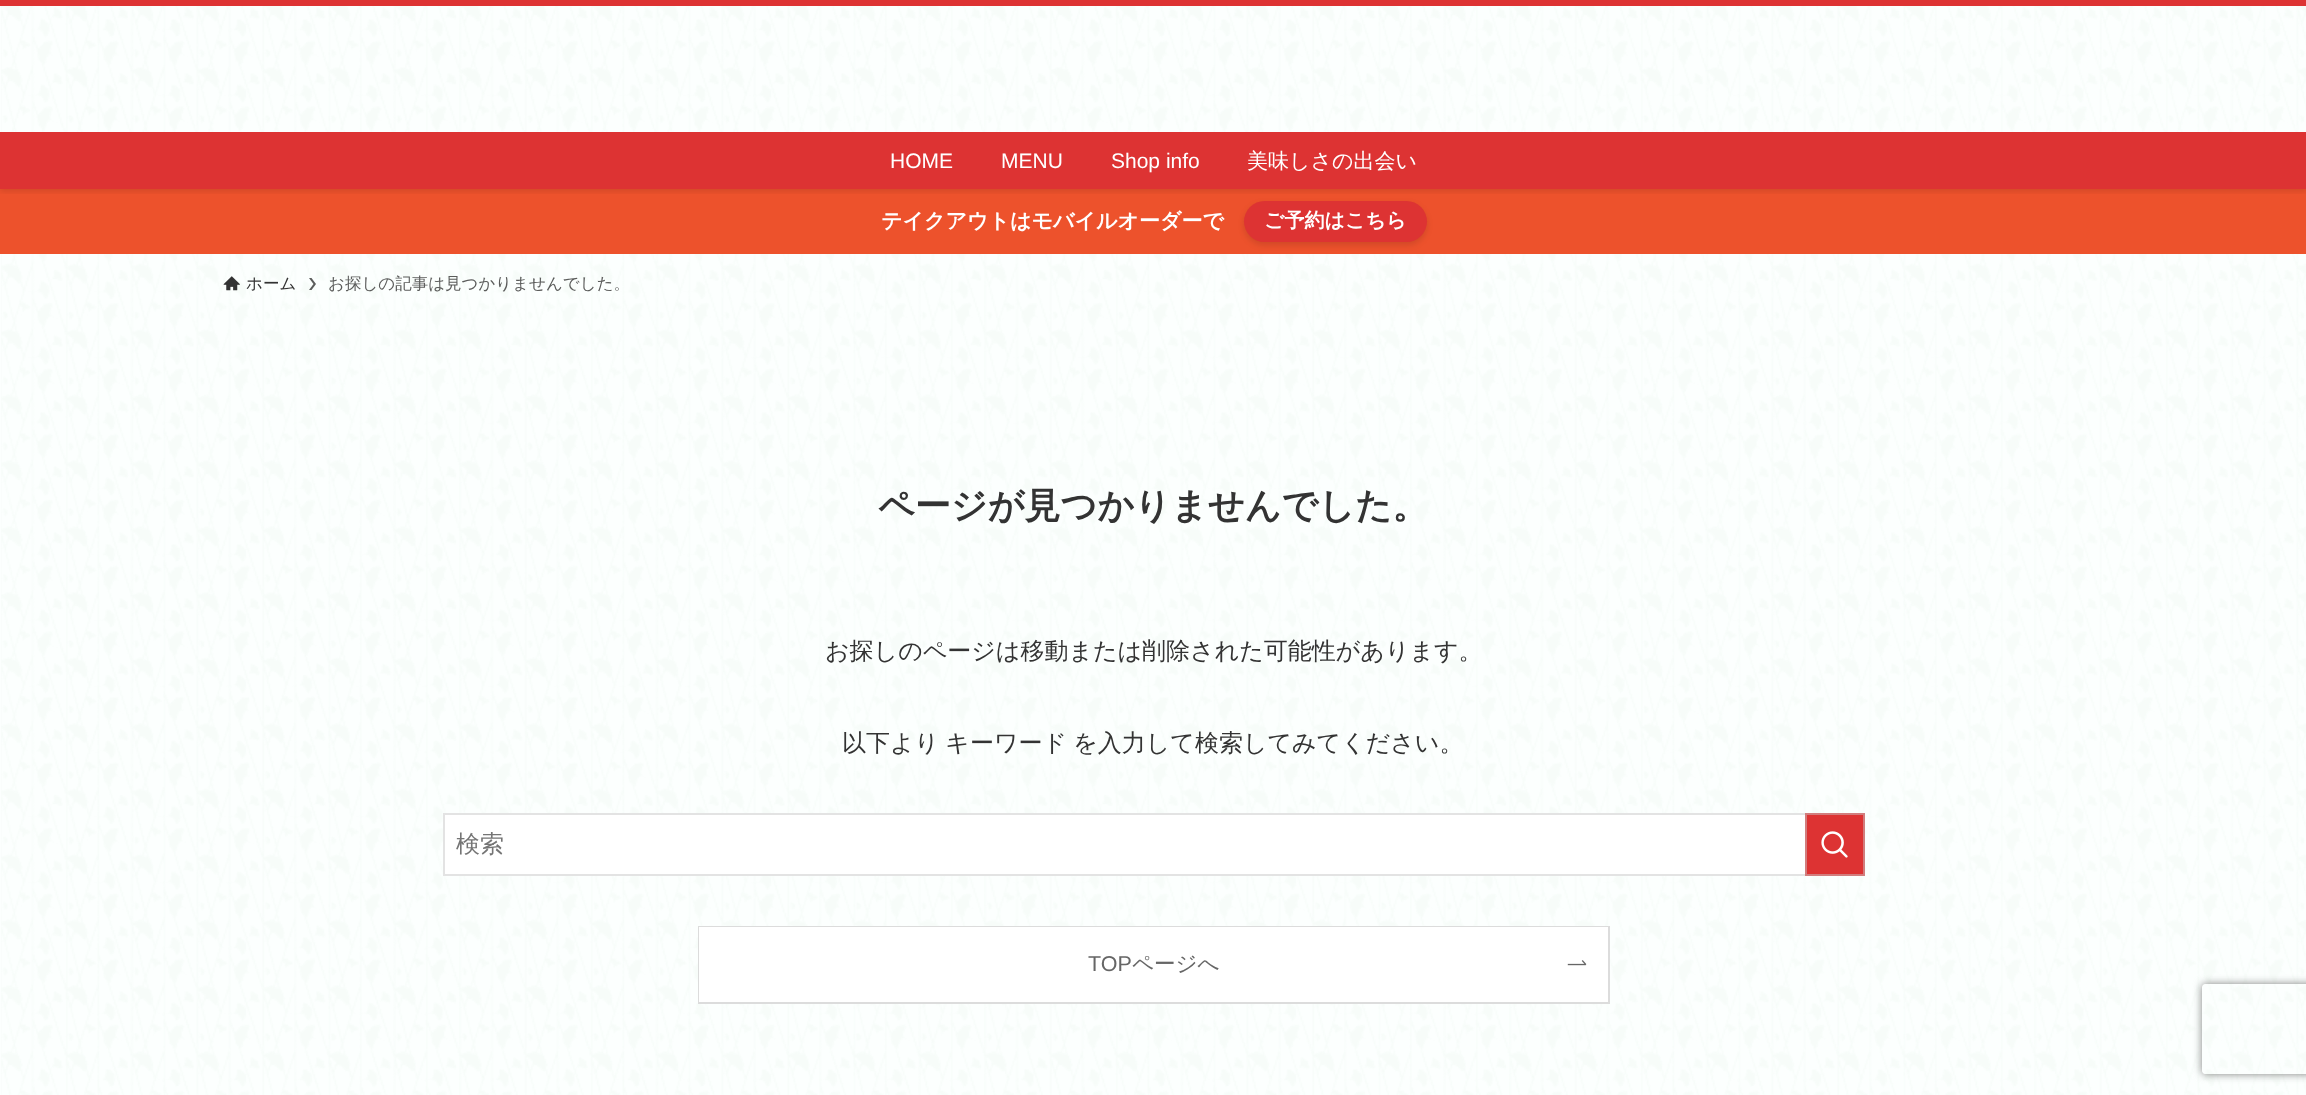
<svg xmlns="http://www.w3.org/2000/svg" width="2306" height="1095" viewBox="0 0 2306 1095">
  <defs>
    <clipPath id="clip1"><path d="M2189 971H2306V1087H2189ZM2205 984H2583C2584.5 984 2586 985.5 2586 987V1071C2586 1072.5 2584.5 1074 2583 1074H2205C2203.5 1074 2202 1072.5 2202 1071V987C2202 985.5 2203.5 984 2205 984Z" clip-rule="evenodd"/></clipPath>
    <clipPath id="clip2"><rect x="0" y="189" width="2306" height="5"/></clipPath>
  </defs>
  <rect width="100%" height="100%" fill="rgb(252,255,254)"/>
  <g clip-path="url(#clip1)">
    <rect x="2202" y="984" width="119" height="90" rx="3" fill="rgb(128,128,128)" filter="blur(4px)"/>
  </g>
  <image x="1" y="6" width="2305" height="1089" href="pic1.png"/>
  <rect x="0" y="189" width="2306" height="65" fill="rgb(237,82,44)"/>
  <g clip-path="url(#clip2)">
    <rect x="0" y="2" width="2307" height="189" fill="rgba(0,0,0,0.12)" filter="blur(3px)"/>
  </g>
  <rect x="0" y="0" width="2306" height="6" fill="rgb(221,51,51)"/>
  <rect x="0" y="132" width="2306" height="57" fill="rgb(221,51,51)"/>
  <g font-family="Liberation Sans" font-size="21" fill="rgb(255,255,255)">
    <text x="890" y="168">HOME</text>
    <text x="1001" y="168">MENU</text>
    <text x="1111" y="168">Shop info</text>
  </g>
  <text x="1247" y="168" font-family="WenQuanYi Zen Hei" font-size="21" font-weight="500" fill="rgb(255,255,255)">美味しさの出会い</text>
  <text x="881" y="228" font-family="WenQuanYi Zen Hei" font-size="21" font-weight="bold" fill="rgb(255,255,255)">テイクアウトはモバイルオーダーで</text>
  <rect x="1244" y="204" width="183" height="41" rx="20.5" fill="rgba(0,0,0,0.12)" filter="blur(3px)"/>
  <rect x="1244" y="201" width="183" height="41" rx="20.5" fill="rgb(221,51,51)"/>
  <text x="1264" y="227" font-family="WenQuanYi Zen Hei" font-size="20" font-weight="bold" fill="rgb(255,255,255)">ご予約はこちら</text>
  <image x="223" y="276" width="17" height="15" href="pic2.png"/>
  <text x="246" y="289" font-family="WenQuanYi Zen Hei" font-size="16.5" font-weight="500" fill="rgb(51,51,51)">ホーム</text>
  <path d="M311.5 278H309L313.5 284L309 290H311.5L316 284Z" fill="rgba(51,51,51,0.8)"/>
  <text x="328" y="289" font-family="WenQuanYi Zen Hei" font-size="16.5" font-weight="500" fill="rgb(91,92,91)">お探しの記事は見つかりませんでした。</text>
  <text x="878" y="518" font-family="WenQuanYi Zen Hei" font-size="36" font-weight="bold" fill="rgb(51,51,51)">ページが見つかりませんでした。</text>
  <g font-family="WenQuanYi Zen Hei" font-size="24" font-weight="500" fill="rgb(51,51,51)">
    <text x="825" y="659">お探しのページは移動または削除された可能性があります。</text>
    <text x="842" y="751" word-spacing="-1">以下より キーワード を入力して検索してみてください。</text>
  </g>
  <rect x="445" y="815" width="1360" height="59" fill="rgb(255,255,255)"/>
  <rect x="444" y="814" width="1420" height="61" fill="none" stroke="rgb(227,227,227)" stroke-width="2"/>
  <text x="456" y="852" font-family="WenQuanYi Zen Hei" font-size="24" font-weight="500" fill="rgb(117,117,117)">検索</text>
  <rect x="1806" y="814" width="58" height="61" fill="rgb(221,51,51)" stroke="rgb(210,125,125)" stroke-width="2"/>
  <image x="1821" y="831" width="27" height="27" href="pic3.png"/>
  <rect x="699" y="927" width="910" height="76" fill="none" stroke="rgb(220,220,220)" stroke-width="2"/>
  <rect x="699" y="927" width="909" height="75" fill="rgb(255,255,255)"/>
  <text x="1088" y="971" font-family="Liberation Sans" font-size="21.5" fill="rgb(102,102,102)">TOP</text>
  <text x="1132" y="971" font-family="WenQuanYi Zen Hei" font-size="21.5" font-weight="500" fill="rgb(102,102,102)">ページへ</text>
  <image x="1567" y="960" width="20" height="6" href="pic4.png"/>
</svg>
